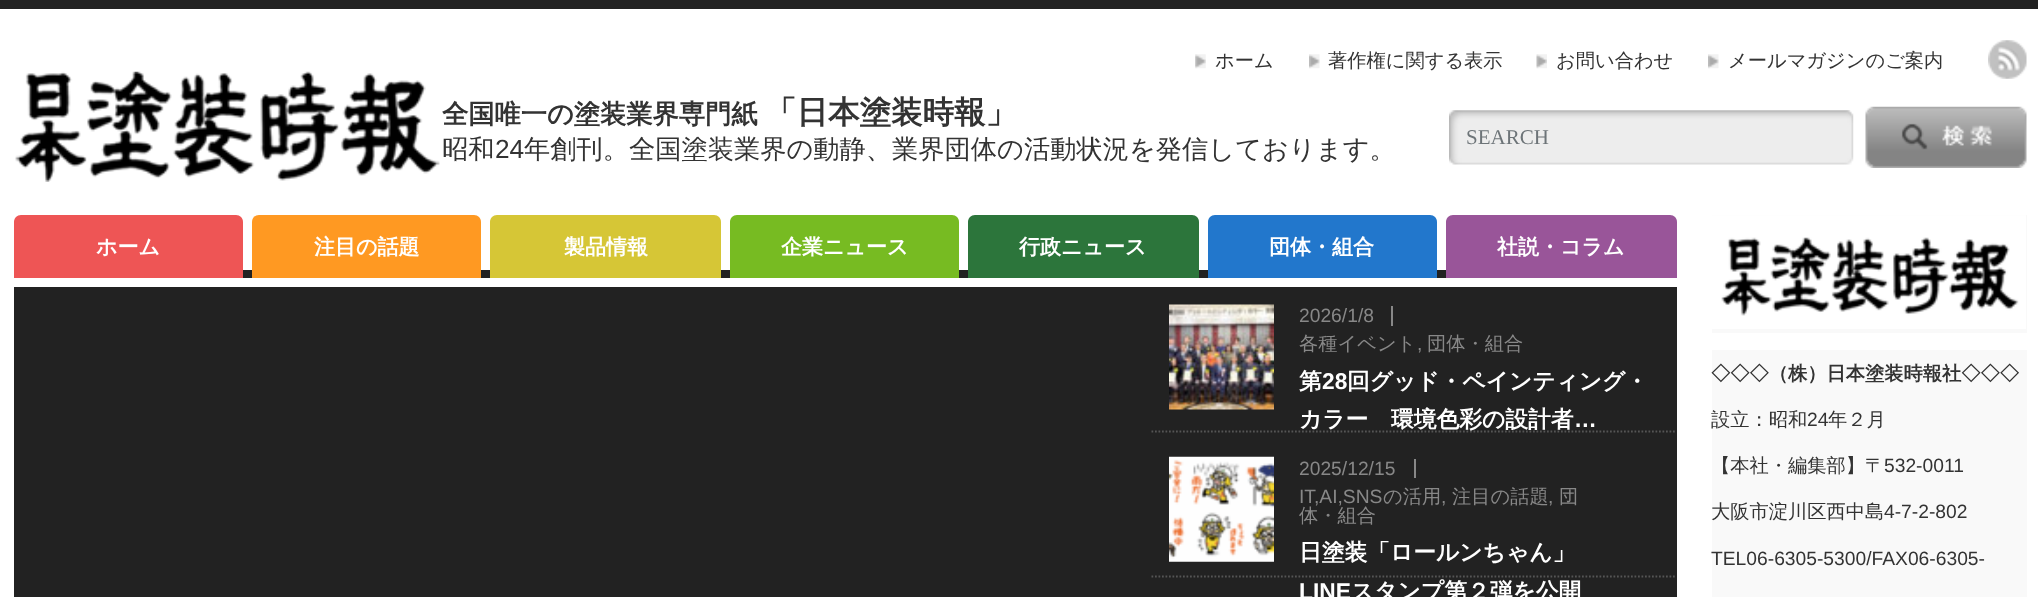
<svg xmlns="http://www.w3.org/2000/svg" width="2038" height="597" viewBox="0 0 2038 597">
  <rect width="100%" height="100%" fill="rgb(255,255,255)"/>
  <rect x="0" y="0" width="2038" height="9" fill="rgb(34,34,34)"/>
  <image x="1195" y="54" width="11" height="15" href="pic1.png"/>
  <text x="1215" y="67" font-family="WenQuanYi Zen Hei" font-size="19.25" font-weight="500" fill="rgb(51,51,51)">ホーム</text>
  <image x="1309" y="54" width="11" height="15" href="pic2.png"/>
  <text x="1328" y="67" font-family="WenQuanYi Zen Hei" font-size="19.25" font-weight="500" fill="rgb(51,51,51)">著作権に関する表示</text>
  <image x="1536" y="54" width="11" height="15" href="pic3.png"/>
  <text x="1556" y="67" font-family="WenQuanYi Zen Hei" font-size="19.25" font-weight="500" fill="rgb(51,51,51)">お問い合わせ</text>
  <image x="1708" y="54" width="11" height="15" href="pic4.png"/>
  <text x="1728" y="67" font-family="WenQuanYi Zen Hei" font-size="19.25" font-weight="500" fill="rgb(51,51,51)">メールマガジンのご案内</text>
  <image x="1988" y="40" width="39" height="39" href="pic5.png"/>
  <image x="15" y="71" width="425" height="111" href="pic6.png"/>
  <text x="442" y="123" font-family="WenQuanYi Zen Hei" font-size="26.25" font-weight="bold" fill="rgb(51,51,51)">全国唯一の塗装業界専門紙</text>
  <text x="765" y="123" font-family="WenQuanYi Zen Hei" font-size="31.5" font-weight="bold" fill="rgb(51,51,51)">「日本塗装時報」</text>
  <text x="442" y="158" font-family="WenQuanYi Zen Hei" font-size="26.25" font-weight="500" fill="rgb(51,51,51)">昭和</text>
  <text x="495" y="158" font-family="Liberation Sans" font-size="26.25" fill="rgb(51,51,51)">24</text>
  <text x="524" y="158" font-family="WenQuanYi Zen Hei" font-size="26.25" font-weight="500" fill="rgb(51,51,51)">年創刊。全国塗装業界の動静、業界団体の活動状況を発信しております。</text>
  <image x="1449" y="110" width="405" height="55" href="pic7.png"/>
  <text x="1466" y="144" font-family="Liberation Serif" font-size="21" fill="rgb(109,116,120)">SEARCH</text>
  <image x="1865" y="106" width="162" height="62" href="pic8.png"/>
  <rect x="243" y="270" width="1203" height="8" fill="rgb(34,34,34)"/>
  <path d="M21 215H236C240 215 243 218 243 222V278H14V222C14 218 17 215 21 215Z" fill="rgb(238,85,85)"/>
  <text x="96" y="254" font-family="WenQuanYi Zen Hei" font-size="21" font-weight="bold" fill="rgb(255,255,255)">ホーム</text>
  <path d="M259 215H474C478 215 481 218 481 222V278H252V222C252 218 255 215 259 215Z" fill="rgb(255,153,34)"/>
  <text x="314" y="254" font-family="WenQuanYi Zen Hei" font-size="21" font-weight="bold" fill="rgb(255,255,255)">注目の話題</text>
  <path d="M497 215H714C718 215 721 218 721 222V278H490V222C490 218 493 215 497 215Z" fill="rgb(214,198,54)"/>
  <text x="564" y="254" font-family="WenQuanYi Zen Hei" font-size="21" font-weight="bold" fill="rgb(255,255,255)">製品情報</text>
  <path d="M737 215H952C956 215 959 218 959 222V278H730V222C730 218 733 215 737 215Z" fill="rgb(119,187,34)"/>
  <text x="781" y="254" font-family="WenQuanYi Zen Hei" font-size="21" font-weight="bold" fill="rgb(255,255,255)">企業ニュース</text>
  <path d="M975 215H1192C1196 215 1199 218 1199 222V278H968V222C968 218 971 215 975 215Z" fill="rgb(44,117,59)"/>
  <text x="1019" y="254" font-family="WenQuanYi Zen Hei" font-size="21" font-weight="bold" fill="rgb(255,255,255)">行政ニュース</text>
  <path d="M1215 215H1430C1434 215 1437 218 1437 222V278H1208V222C1208 218 1211 215 1215 215Z" fill="rgb(34,119,204)"/>
  <text x="1269" y="254" font-family="WenQuanYi Zen Hei" font-size="21" font-weight="bold" fill="rgb(255,255,255)">団体・組合</text>
  <path d="M1453 215H1670C1674 215 1677 218 1677 222V278H1446V222C1446 218 1449 215 1453 215Z" fill="rgb(153,85,153)"/>
  <text x="1497" y="254" font-family="WenQuanYi Zen Hei" font-size="21" font-weight="bold" fill="rgb(255,255,255)">社説・コラム</text>
  <rect x="14" y="287" width="1663" height="310" fill="rgb(34,34,34)"/>
  <path d="M1151.5 431.5H1676.5" fill="none" stroke="rgb(85,85,85)" stroke-width="1.8" stroke-dasharray="1.75 1.75"/>
  <image x="1169" y="304" width="105" height="106" href="pic9.png"/>
  <rect x="1391" y="306" width="2" height="20" fill="rgb(136,136,136)"/>
  <text x="1299" y="322" font-family="Liberation Sans" font-size="19.25" fill="rgb(136,136,136)">2026/1/8</text>
  <text x="1299" y="350" font-family="WenQuanYi Zen Hei" font-size="19.25" font-weight="500" fill="rgb(136,136,136)">各種イベント</text>
  <text x="1417" y="350" font-family="Liberation Sans" font-size="19.25" fill="rgb(136,136,136)">,</text>
  <text x="1427" y="350" font-family="WenQuanYi Zen Hei" font-size="19.25" font-weight="500" fill="rgb(136,136,136)">団体・組合</text>
  <text x="1299" y="389" font-family="WenQuanYi Zen Hei" font-size="22.75" font-weight="bold" fill="rgb(255,255,255)">第</text>
  <text x="1322" y="389" font-family="Liberation Sans" font-size="22.75" font-weight="bold" fill="rgb(255,255,255)">28</text>
  <g font-family="WenQuanYi Zen Hei" font-size="22.75" font-weight="bold" fill="rgb(255,255,255)">
    <text x="1347" y="389">回グッド・ペインティング・</text>
    <text x="1299" y="427">カラー　環境色彩の設計者</text>
  </g>
  <text x="1574" y="427" font-family="Liberation Sans" font-size="22.75" font-weight="bold" fill="rgb(255,255,255)">…</text>
  <path d="M1151.5 576.5H1676.5" fill="none" stroke="rgb(85,85,85)" stroke-width="1.8" stroke-dasharray="1.75 1.75"/>
  <image x="1169" y="456" width="105" height="106" href="pic10.png"/>
  <rect x="1414" y="459" width="2" height="19" fill="rgb(136,136,136)"/>
  <g font-family="Liberation Sans" font-size="19.25" fill="rgb(136,136,136)">
    <text>
      <tspan x="1299" y="475">2025/12/15</tspan>
      <tspan x="1299" y="503">IT,AI,SNS</tspan>
    </text>
  </g>
  <text x="1383" y="503" font-family="WenQuanYi Zen Hei" font-size="19.25" font-weight="500" fill="rgb(136,136,136)">の活用</text>
  <text x="1441" y="503" font-family="Liberation Sans" font-size="19.25" fill="rgb(136,136,136)">,</text>
  <text x="1452" y="503" font-family="WenQuanYi Zen Hei" font-size="19.25" font-weight="500" fill="rgb(136,136,136)">注目の話題</text>
  <text x="1548" y="503" font-family="Liberation Sans" font-size="19.25" fill="rgb(136,136,136)">,</text>
  <g font-family="WenQuanYi Zen Hei" font-size="19.25" font-weight="500" fill="rgb(136,136,136)">
    <text x="1559" y="503">団</text>
    <text x="1299" y="522">体・組合</text>
  </g>
  <text x="1299" y="560" font-family="WenQuanYi Zen Hei" font-size="22.75" font-weight="bold" fill="rgb(255,255,255)">日塗装「ロールンちゃん」</text>
  <text x="1299" y="599" font-family="Liberation Sans" font-size="22.75" font-weight="bold" fill="rgb(255,255,255)">LINE</text>
  <text x="1351" y="599" font-family="WenQuanYi Zen Hei" font-size="22.75" font-weight="bold" fill="rgb(255,255,255)">スタンプ第２弾を公開</text>
  <rect x="1712" y="215" width="315" height="118" fill="rgb(249,249,249)"/>
  <image x="1712" y="215" width="314" height="114" href="pic11.png"/>
  <rect x="1712" y="350" width="315" height="247" fill="rgb(249,249,249)"/>
  <text x="1711" y="380" font-family="WenQuanYi Zen Hei" font-size="19.25" font-weight="bold" fill="rgb(51,51,51)">◇◇◇（株）日本塗装時報社◇◇◇</text>
  <text x="1711" y="426" font-family="WenQuanYi Zen Hei" font-size="19.25" font-weight="500" fill="rgb(51,51,51)">設立：昭和</text>
  <text x="1807" y="426" font-family="Liberation Sans" font-size="19.25" fill="rgb(51,51,51)">24</text>
  <g font-family="WenQuanYi Zen Hei" font-size="19.25" font-weight="500" fill="rgb(51,51,51)">
    <text x="1828" y="426">年２月</text>
    <text x="1711" y="472">【本社・編集部】〒</text>
  </g>
  <text x="1884" y="472" font-family="Liberation Sans" font-size="19.25" fill="rgb(51,51,51)">532-0011</text>
  <text x="1711" y="518" font-family="WenQuanYi Zen Hei" font-size="19.25" font-weight="500" fill="rgb(51,51,51)">大阪市淀川区西中島</text>
  <g font-family="Liberation Sans" font-size="19.25" fill="rgb(51,51,51)">
    <text x="1884" y="518">4-7-2-802</text>
    <text x="1711" y="565">TEL06-6305-5300/FAX06-6305-</text>
  </g>
</svg>
